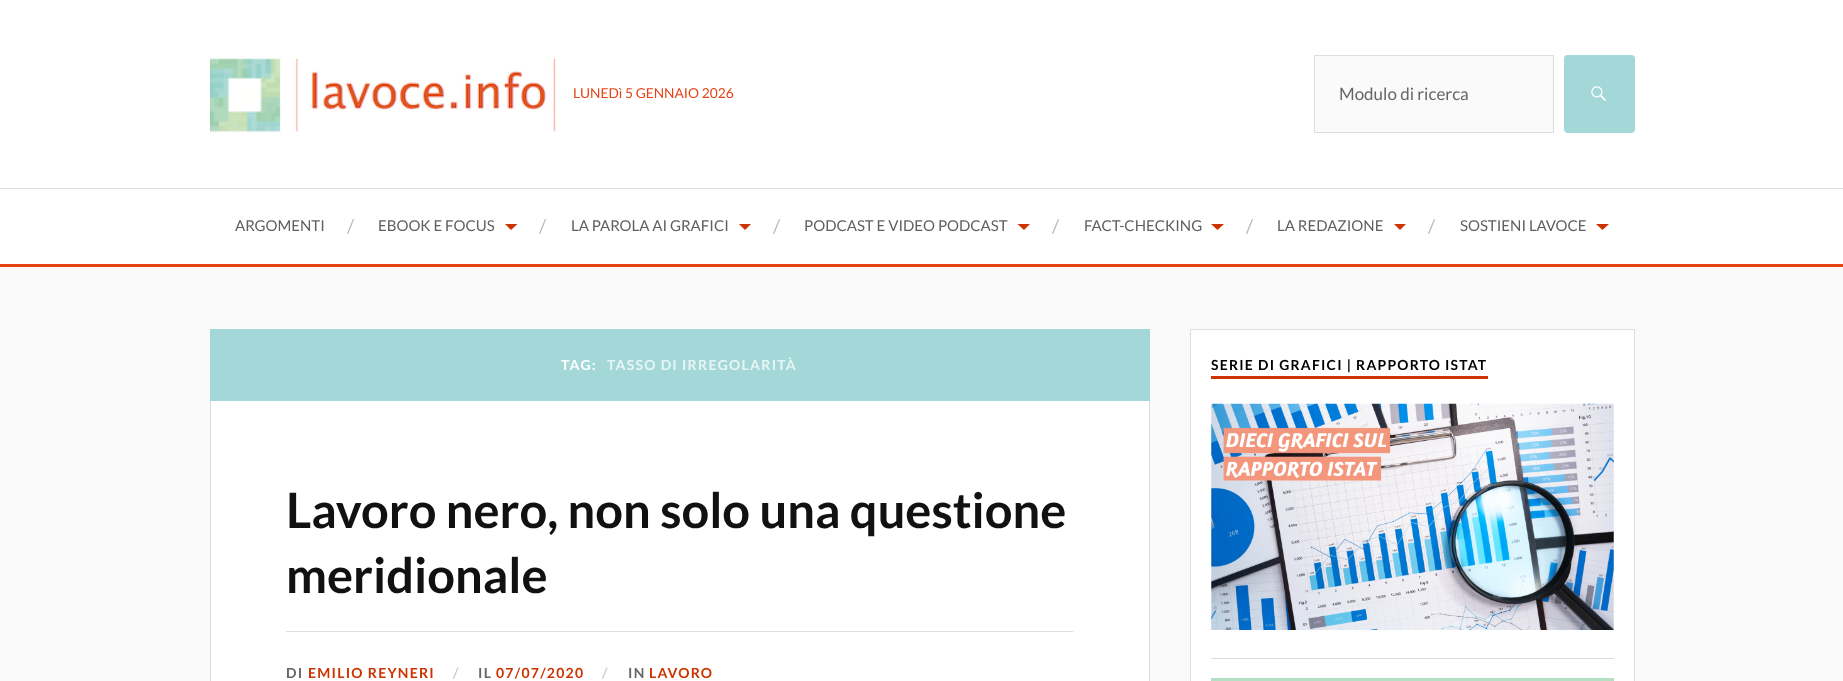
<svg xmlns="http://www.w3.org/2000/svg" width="1843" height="681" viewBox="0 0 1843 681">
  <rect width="100%" height="100%" fill="rgb(250,250,250)"/>
  <rect x="0" y="0" width="1843" height="188" fill="rgb(255,255,255)"/>
  <image x="210" y="58" width="346" height="75" href="pic1.png"/>
  <text x="573" y="98" font-family="Lato" font-size="13.75" fill="rgb(229,66,21)">LUNEDì 5 GENNAIO 2026</text>
  <rect x="1314.5" y="55.5" width="239" height="77" fill="rgb(250,250,250)" stroke="rgb(221,221,221)"/>
  <text x="1339" y="100" font-family="Lato" font-size="17" fill="rgb(102,102,102)">Modulo di ricerca</text>
  <rect x="1564" y="55" width="71" height="78" rx="4" fill="rgb(163,215,216)"/>
  <image x="1591" y="86" width="15" height="15" href="pic2.png"/>
  <rect x="0" y="189" width="1843" height="75" fill="rgb(255,255,255)"/>
  <rect x="0" y="188" width="1843" height="1" fill="rgb(221,221,221)"/>
  <rect x="0" y="264" width="1843" height="3" fill="rgb(229,66,21)"/>
  <text x="235" y="231" font-family="Lato" font-size="15" fill="rgb(95,95,95)">ARGOMENTI</text>
  <text x="347" y="233" font-family="Lato" font-size="19" fill="rgb(187,187,187)">/</text>
  <text x="378" y="231" font-family="Lato" font-size="15" fill="rgb(95,95,95)">EBOOK E FOCUS</text>
  <path d="M505 224H517.5L511 230Z" fill="rgb(204,51,0)"/>
  <text x="539" y="233" font-family="Lato" font-size="19" fill="rgb(187,187,187)">/</text>
  <text x="571" y="231" font-family="Lato" font-size="15" fill="rgb(95,95,95)">LA PAROLA AI GRAFICI</text>
  <path d="M739 224H751L745 230Z" fill="rgb(204,51,0)"/>
  <text x="773" y="233" font-family="Lato" font-size="19" fill="rgb(187,187,187)">/</text>
  <text x="804" y="231" font-family="Lato" font-size="15" fill="rgb(95,95,95)">PODCAST E VIDEO PODCAST</text>
  <path d="M1017.5 224H1030L1024 230Z" fill="rgb(204,51,0)"/>
  <text x="1052" y="233" font-family="Lato" font-size="19" fill="rgb(187,187,187)">/</text>
  <text x="1084" y="231" font-family="Lato" font-size="15" fill="rgb(95,95,95)">FACT-CHECKING</text>
  <path d="M1211 224H1224L1217.5 230Z" fill="rgb(204,51,0)"/>
  <text x="1246" y="233" font-family="Lato" font-size="19" fill="rgb(187,187,187)">/</text>
  <text x="1277" y="231" font-family="Lato" font-size="15" fill="rgb(95,95,95)">LA REDAZIONE</text>
  <path d="M1394 224H1406L1400 230Z" fill="rgb(204,51,0)"/>
  <text x="1428" y="233" font-family="Lato" font-size="19" fill="rgb(187,187,187)">/</text>
  <text x="1460" y="231" font-family="Lato" font-size="15" fill="rgb(95,95,95)">SOSTIENI LAVOCE</text>
  <path d="M1596 224H1609L1602.5 230Z" fill="rgb(204,51,0)"/>
  <rect x="210" y="329" width="940" height="72" fill="rgb(163,215,216)"/>
  <text x="561" y="370" font-family="Lato" font-size="14" font-weight="bold" letter-spacing="1.25" fill="rgb(255,255,255)">TAG:</text>
  <text x="607" y="370" font-family="Lato" font-size="14" font-weight="bold" letter-spacing="1.25" fill="rgb(232,245,245)">TASSO DI IRREGOLARITÀ</text>
  <rect x="211" y="401" width="938" height="280" fill="rgb(255,255,255)"/>
  <rect x="1149" y="401" width="1" height="280" fill="rgb(221,221,221)"/>
  <rect x="210" y="401" width="1" height="280" fill="rgb(221,221,221)"/>
  <g font-family="Lato" font-size="48.75" font-weight="bold" fill="rgb(17,17,17)">
    <text>
      <tspan x="286" y="528">Lavoro nero, non solo una questione</tspan>
      <tspan x="286" y="593">meridionale</tspan>
    </text>
  </g>
  <rect x="286" y="631" width="787" height="1" fill="rgb(221,221,221)"/>
  <text x="286" y="678" font-family="Lato" font-size="14" font-weight="bold" letter-spacing="1.25" fill="rgb(102,102,102)">DI</text>
  <text x="308" y="678" font-family="Lato" font-size="14" font-weight="bold" letter-spacing="1.25" fill="rgb(204,51,0)">EMILIO REYNERI</text>
  <text x="453" y="678" font-family="Lato" font-size="14" font-weight="bold" letter-spacing="1.25" fill="rgb(204,204,204)">/</text>
  <text x="478" y="678" font-family="Lato" font-size="14" font-weight="bold" letter-spacing="1.25" fill="rgb(102,102,102)">IL</text>
  <text x="496" y="678" font-family="Lato" font-size="14" font-weight="bold" letter-spacing="1.25" fill="rgb(204,51,0)">07/07/2020</text>
  <text x="602" y="678" font-family="Lato" font-size="14" font-weight="bold" letter-spacing="1.25" fill="rgb(204,204,204)">/</text>
  <text x="628" y="678" font-family="Lato" font-size="14" font-weight="bold" letter-spacing="1.25" fill="rgb(102,102,102)">IN</text>
  <text x="649" y="678" font-family="Lato" font-size="14" font-weight="bold" letter-spacing="1.25" fill="rgb(204,51,0)">LAVORO</text>
  <rect x="1190.5" y="329.5" width="444" height="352" fill="rgb(255,255,255)" stroke="rgb(221,221,221)"/>
  <rect x="1211" y="376" width="277" height="3" fill="rgb(204,51,0)"/>
  <text x="1211" y="370" font-family="Lato" font-size="13.9" font-weight="bold" letter-spacing="1.25" fill="rgb(0,0,0)">SERIE DI GRAFICI | RAPPORTO ISTAT</text>
  <image x="1211" y="403" width="403" height="227" href="pic3.png"/>
  <rect x="1211" y="658" width="403" height="1" fill="rgb(221,221,221)"/>
  <rect x="1211" y="678" width="403" height="3" fill="rgb(181,223,194)"/>
</svg>
